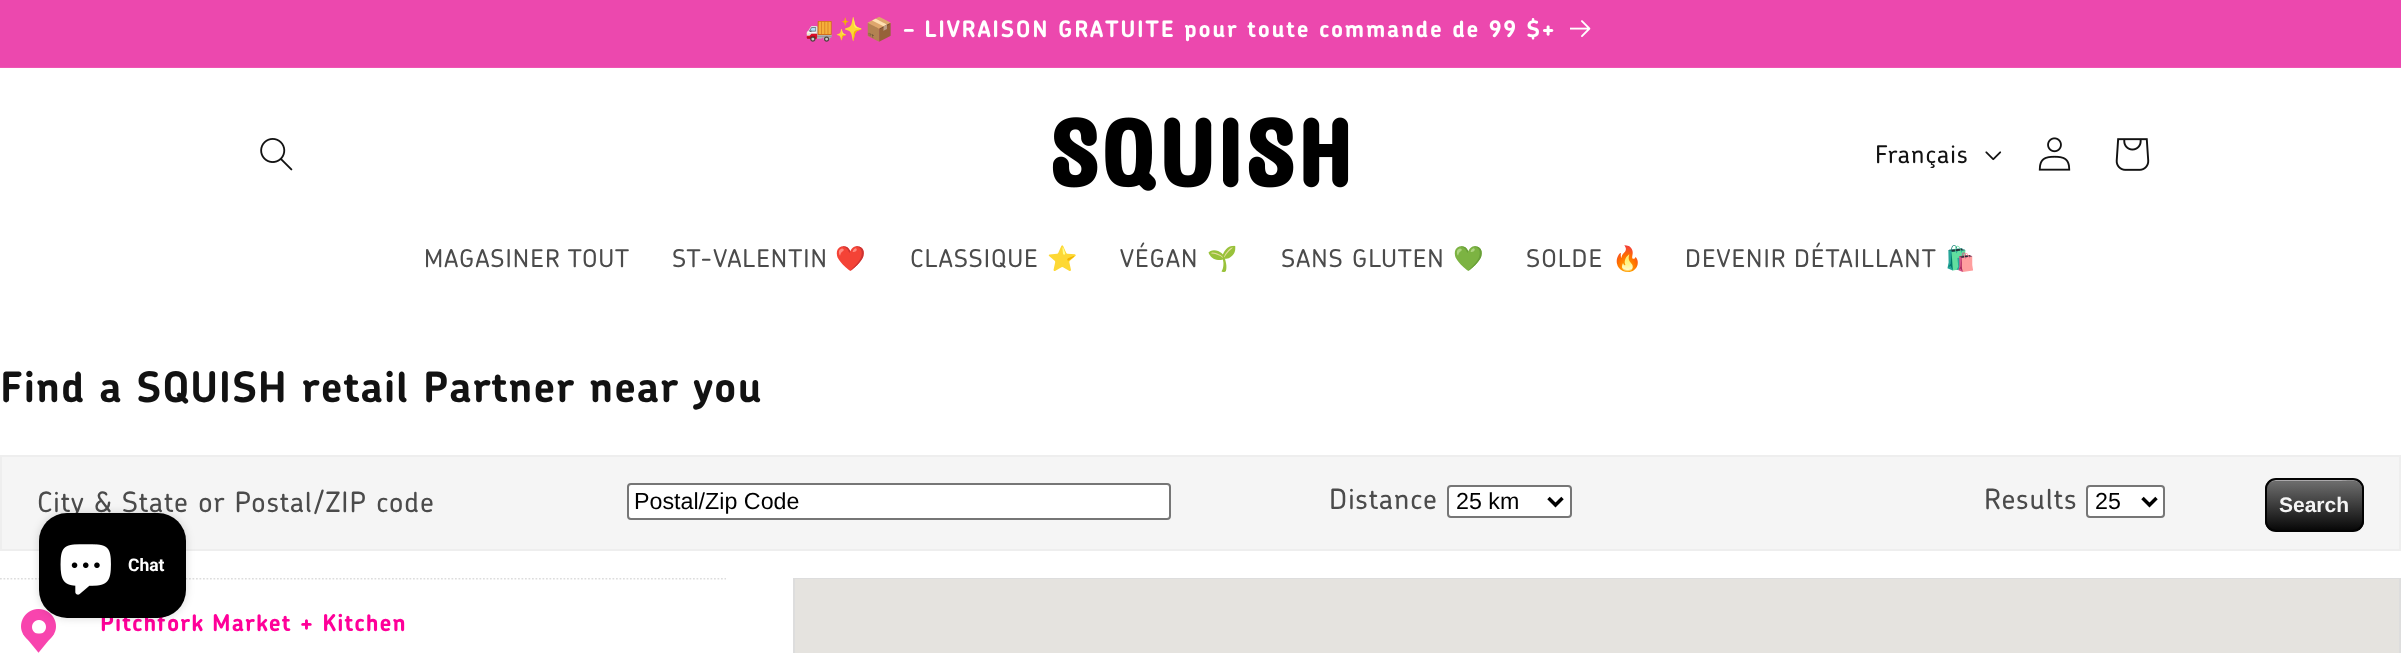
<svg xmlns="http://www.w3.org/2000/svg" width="2401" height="653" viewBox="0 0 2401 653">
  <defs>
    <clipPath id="clip1"><rect x="2265" y="478" width="99" height="54" rx="11"/></clipPath>
    <linearGradient id="g1" gradientUnits="userSpaceOnUse" x1="2266" y1="480" x2="2266" y2="530"><stop offset="0.05" stop-color="rgb(107,107,107)"/><stop offset="1" stop-color="rgb(8,8,8)"/></linearGradient>
    <clipPath id="clip2"><rect x="0" y="578" width="744" height="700"/></clipPath>
  </defs>
  <rect width="100%" height="100%" fill="rgb(255,255,255)"/>
  <rect x="0" y="0" width="2401" height="67" fill="rgb(236,72,174)"/>
  <rect x="0" y="67" width="2401" height="1" fill="rgb(238,87,180)"/>
  <text x="805" y="37" font-family="Noto Color Emoji" font-size="22.75" letter-spacing="1.75" fill="rgb(255,255,255)">🚚✨📦</text>
  <text x="904" y="37" font-family="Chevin" font-size="22.75" font-weight="bold" letter-spacing="1.75" fill="rgb(255,255,255)">– LIVRAISON GRATUITE pour toute commande de 99 $+</text>
  <image x="1570" y="20" width="21" height="17" href="pic1.png"/>
  <image x="260" y="138" width="33" height="33" href="pic2.png"/>
  <image x="1052" y="117" width="297" height="74" href="pic3.png"/>
  <text x="1875" y="163" font-family="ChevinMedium" font-size="24.5" font-weight="500" letter-spacing="1.05" fill="rgb(18,18,18)">Français</text>
  <image x="1985" y="151" width="17" height="10" href="pic4.png"/>
  <image x="2038" y="137" width="33" height="34" href="pic5.png"/>
  <image x="2115" y="138" width="35" height="33" href="pic6.png"/>
  <g font-family="ChevinMedium" font-size="24.5" font-weight="500" letter-spacing="1.05" fill="rgb(75,75,75)">
    <text x="424" y="267">MAGASINER TOUT</text>
    <text x="672" y="267">ST-VALENTIN</text>
  </g>
  <text x="835" y="267" font-family="Noto Color Emoji" font-size="24.5" letter-spacing="1.05" fill="rgb(75,75,75)">❤️</text>
  <text x="910" y="267" font-family="ChevinMedium" font-size="24.5" font-weight="500" letter-spacing="1.05" fill="rgb(75,75,75)">CLASSIQUE</text>
  <text x="1047" y="267" font-family="Noto Color Emoji" font-size="24.5" letter-spacing="1.05" fill="rgb(75,75,75)">⭐</text>
  <text x="1120" y="267" font-family="ChevinMedium" font-size="24.5" font-weight="500" letter-spacing="1.05" fill="rgb(75,75,75)">VÉGAN</text>
  <text x="1207" y="267" font-family="Noto Color Emoji" font-size="24.5" letter-spacing="1.05" fill="rgb(75,75,75)">🌱</text>
  <text x="1281" y="267" font-family="ChevinMedium" font-size="24.5" font-weight="500" letter-spacing="1.05" fill="rgb(75,75,75)">SANS GLUTEN</text>
  <text x="1453" y="267" font-family="Noto Color Emoji" font-size="24.5" letter-spacing="1.05" fill="rgb(75,75,75)">💚</text>
  <text x="1526" y="267" font-family="ChevinMedium" font-size="24.5" font-weight="500" letter-spacing="1.05" fill="rgb(75,75,75)">SOLDE</text>
  <text x="1612" y="267" font-family="Noto Color Emoji" font-size="24.5" letter-spacing="1.05" fill="rgb(75,75,75)">🔥</text>
  <text x="1685" y="267" word-spacing="-1" font-family="ChevinMedium" font-size="24.5" font-weight="500" letter-spacing="1.05" fill="rgb(75,75,75)">DEVENIR DÉTAILLANT</text>
  <text x="1945" y="267" font-family="Noto Color Emoji" font-size="24.5" letter-spacing="1.05" fill="rgb(75,75,75)">🛍️</text>
  <text x="0" y="402" font-family="Chevin" font-size="42" font-weight="bold" letter-spacing="1.05" fill="rgb(18,18,18)">Find a SQUISH retail Partner near you</text>
  <rect x="1" y="456" width="2399" height="94" fill="rgb(245,245,245)" stroke="rgb(238,238,238)" stroke-width="2"/>
  <text x="37" y="512" font-family="ChevinMedium" font-size="28" font-weight="500" letter-spacing="1.05" fill="rgb(75,75,75)">City &amp; State or Postal/ZIP code</text>
  <rect x="628" y="484" width="542" height="35" rx="3" fill="rgb(255,255,255)" stroke="rgb(118,118,118)" stroke-width="2"/>
  <text x="634" y="509" font-family="Liberation Sans" font-size="23.25" fill="rgb(0,0,0)">Postal/Zip Code</text>
  <text x="1329" y="509" font-family="ChevinMedium" font-size="28" font-weight="500" letter-spacing="1.05" fill="rgb(75,75,75)">Distance</text>
  <rect x="1448" y="486" width="123" height="31" rx="3" fill="rgb(255,255,255)" stroke="rgb(118,118,118)" stroke-width="2"/>
  <path d="M1548.5 498L1555.5 505L1562.5 498" fill="none" stroke="rgb(0,0,0)" stroke-width="3.5"/>
  <text x="1456" y="509" font-family="Liberation Sans" font-size="23.25" fill="rgb(0,0,0)">25 km</text>
  <text x="1984" y="509" font-family="ChevinMedium" font-size="28" font-weight="500" letter-spacing="1.05" fill="rgb(75,75,75)">Results</text>
  <rect x="2087" y="486" width="77" height="31" rx="3" fill="rgb(255,255,255)" stroke="rgb(118,118,118)" stroke-width="2"/>
  <path d="M2142.5 498L2149.5 505L2156.5 498" fill="none" stroke="rgb(0,0,0)" stroke-width="3.5"/>
  <text x="2095" y="509" font-family="Liberation Sans" font-size="23.25" fill="rgb(0,0,0)">25</text>
  <g clip-path="url(#clip1)">
    <rect x="2265" y="480" width="99" height="50" fill="url(#g1)"/>
  </g>
  <path d="M2275 481H2341C2348 481 2360 478 2362 488V526C2363 524 2363 523 2363 521V489C2363 484 2359 480 2354 480H2275C2270 480 2266 484 2266 489V490C2266 485 2270 481 2275 481Z" fill="rgb(171,169,171)"/>
  <rect x="2266" y="479" width="97" height="52" rx="10" fill="none" stroke="rgb(3,3,3)" stroke-width="2"/>
  <text x="2279" y="512" font-family="Liberation Sans" font-size="21" font-weight="bold" fill="rgb(245,245,245)">Search</text>
  <image x="21" y="609" width="35" height="44" href="pic7.png"/>
  <g clip-path="url(#clip2)">
    <path d="M0 578.5H726" fill="none" stroke="rgb(221,221,221)" stroke-width="1.8" stroke-dasharray="1.75 1.75"/>
  </g>
  <text x="100" y="631" font-family="Chevin" font-size="23.1" font-weight="bold" letter-spacing="1.05" fill="rgb(255,0,153)">Pitchfork Market + Kitchen</text>
  <rect x="794" y="579" width="1606" height="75" fill="none" stroke="rgb(221,221,221)" stroke-width="2"/>
  <rect x="795" y="579" width="1604" height="74" fill="rgb(229,227,223)"/>
  <rect x="39" y="513" width="147" height="105" rx="28" fill="rgba(0,0,0,0.15)" filter="blur(4.5px)"/>
  <rect x="39" y="513" width="147" height="105" rx="28" fill="rgb(0,0,0)"/>
  <image x="60" y="544" width="51" height="51" href="pic8.png"/>
  <text x="128" y="571" font-family="Roboto" font-size="17.5" font-weight="bold" fill="rgb(255,255,255)">Chat</text>
</svg>
